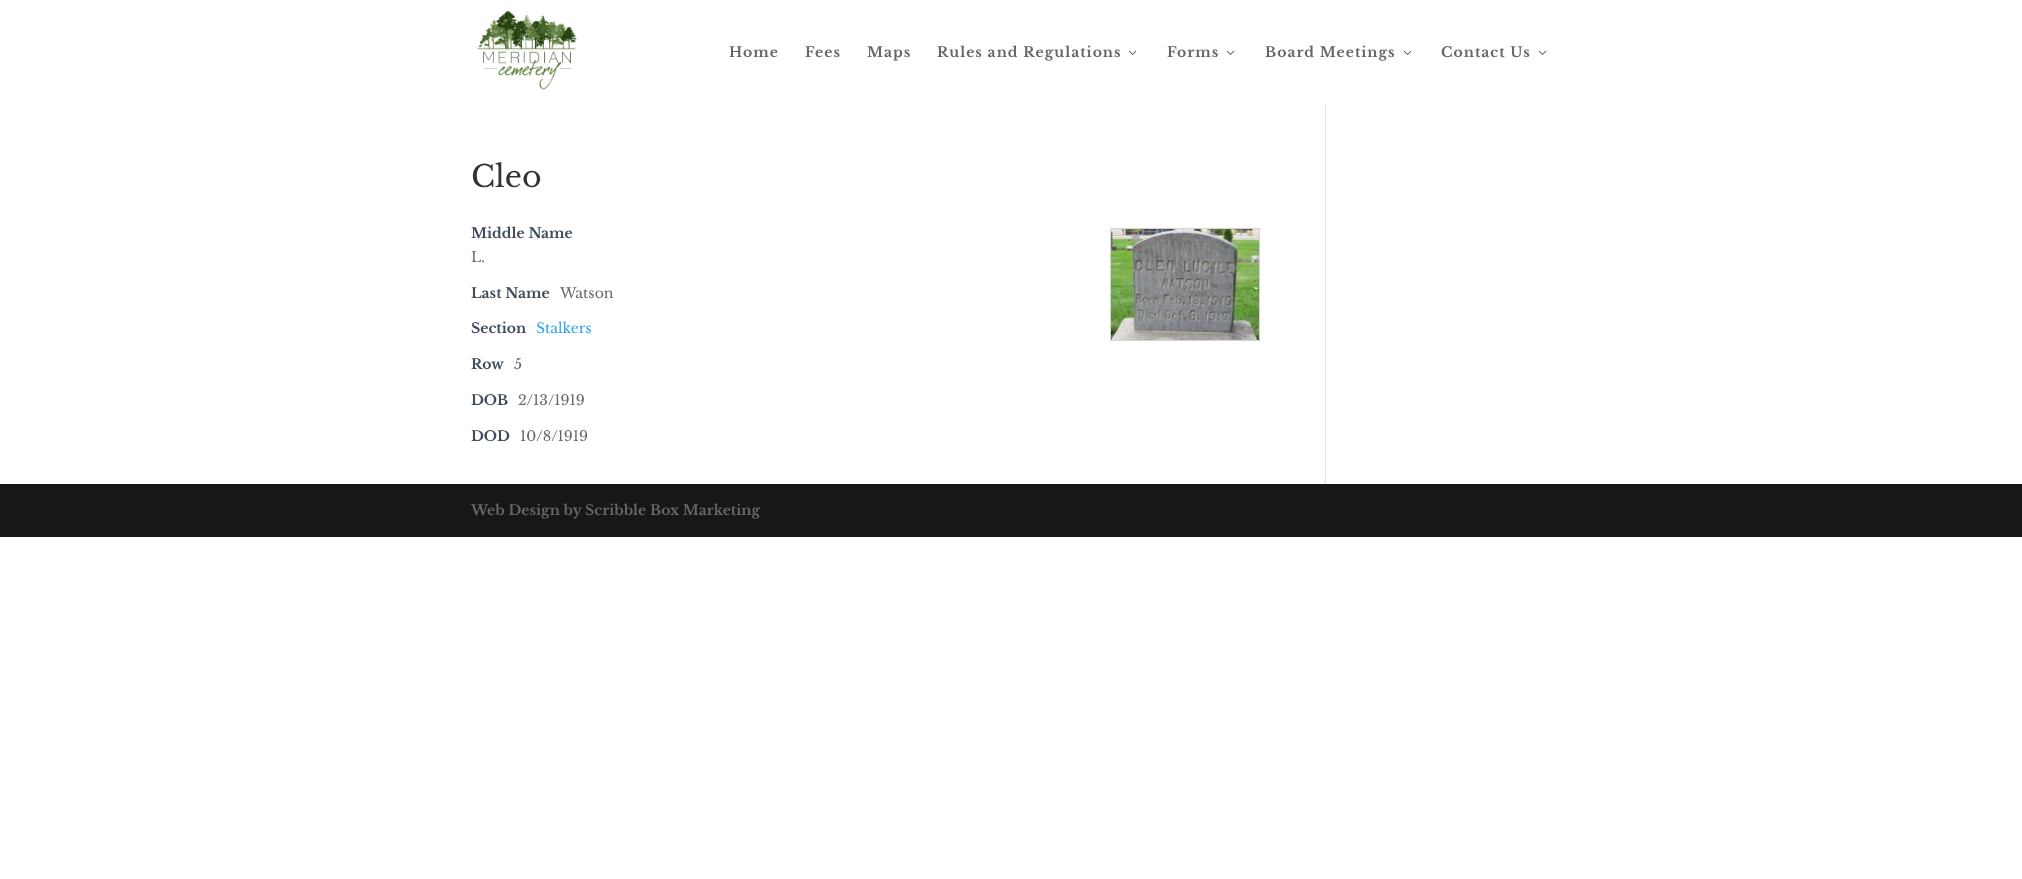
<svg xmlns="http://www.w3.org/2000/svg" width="2022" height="879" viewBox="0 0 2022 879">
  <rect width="100%" height="100%" fill="rgb(255,255,255)"/>
  <image x="477" y="10" width="100" height="80" href="pic1.png"/>
  <g font-family="Libre Baskerville" font-size="14" font-weight="bold" letter-spacing="1" fill="rgb(102,102,102)">
    <text x="729" y="57">Home</text>
    <text x="805" y="57">Fees</text>
    <text x="867" y="57">Maps</text>
    <text x="937" y="57">Rules and Regulations</text>
  </g>
  <image x="1128" y="50" width="9" height="5" href="pic2.png"/>
  <text x="1167" y="57" font-family="Libre Baskerville" font-size="14" font-weight="bold" letter-spacing="1" fill="rgb(102,102,102)">Forms</text>
  <image x="1226" y="50" width="9" height="5" href="pic2.png"/>
  <rect x="1325" y="0" width="1" height="104" fill="rgb(252,252,252)"/>
  <text x="1265" y="57" font-family="Libre Baskerville" font-size="14" font-weight="bold" letter-spacing="1" fill="rgb(102,102,102)">Board Meetings</text>
  <image x="1403" y="50" width="9" height="5" href="pic2.png"/>
  <text x="1441" y="57" font-family="Libre Baskerville" font-size="14" font-weight="bold" letter-spacing="1" fill="rgb(102,102,102)">Contact Us</text>
  <image x="1538" y="50" width="9" height="5" href="pic2.png"/>
  <text x="471" y="187" font-family="Libre Baskerville" font-size="30" fill="rgb(51,51,51)">Cleo</text>
  <text x="471" y="238" font-family="Libre Baskerville" font-size="14" font-weight="bold" fill="rgb(63,75,91)">Middle Name</text>
  <text x="471" y="262" font-family="Libre Baskerville" font-size="14" fill="rgb(102,102,102)">L.</text>
  <text x="471" y="298" font-family="Libre Baskerville" font-size="14" font-weight="bold" fill="rgb(63,75,91)">Last Name</text>
  <text x="560" y="298" font-family="Libre Baskerville" font-size="14" fill="rgb(102,102,102)">Watson</text>
  <text x="471" y="333" font-family="Libre Baskerville" font-size="14" font-weight="bold" fill="rgb(63,75,91)">Section</text>
  <text x="536" y="333" font-family="Libre Baskerville" font-size="14" fill="rgb(46,163,242)">Stalkers</text>
  <text x="471" y="369" font-family="Libre Baskerville" font-size="14" font-weight="bold" fill="rgb(63,75,91)">Row</text>
  <text x="514" y="369" font-family="Libre Baskerville" font-size="14" fill="rgb(102,102,102)">5</text>
  <text x="471" y="405" font-family="Libre Baskerville" font-size="14" font-weight="bold" fill="rgb(63,75,91)">DOB</text>
  <text x="518" y="405" font-family="Libre Baskerville" font-size="14" fill="rgb(102,102,102)">2/13/1919</text>
  <text x="471" y="441" font-family="Libre Baskerville" font-size="14" font-weight="bold" fill="rgb(63,75,91)">DOD</text>
  <text x="520" y="441" font-family="Libre Baskerville" font-size="14" fill="rgb(102,102,102)">10/8/1919</text>
  <rect x="1110.5" y="228.5" width="149" height="112" fill="none" stroke="rgb(212,212,212)"/>
  <image x="1111" y="229" width="148" height="111" href="pic3.png"/>
  <rect x="1325" y="104" width="1" height="380" fill="rgb(226,226,226)"/>
  <rect x="0" y="484" width="2022" height="53" fill="rgb(23,23,23)"/>
  <text x="471" y="515" font-family="Libre Baskerville" font-size="14" font-weight="bold" fill="rgb(102,102,102)">Web Design by Scribble Box Marketing</text>
</svg>
